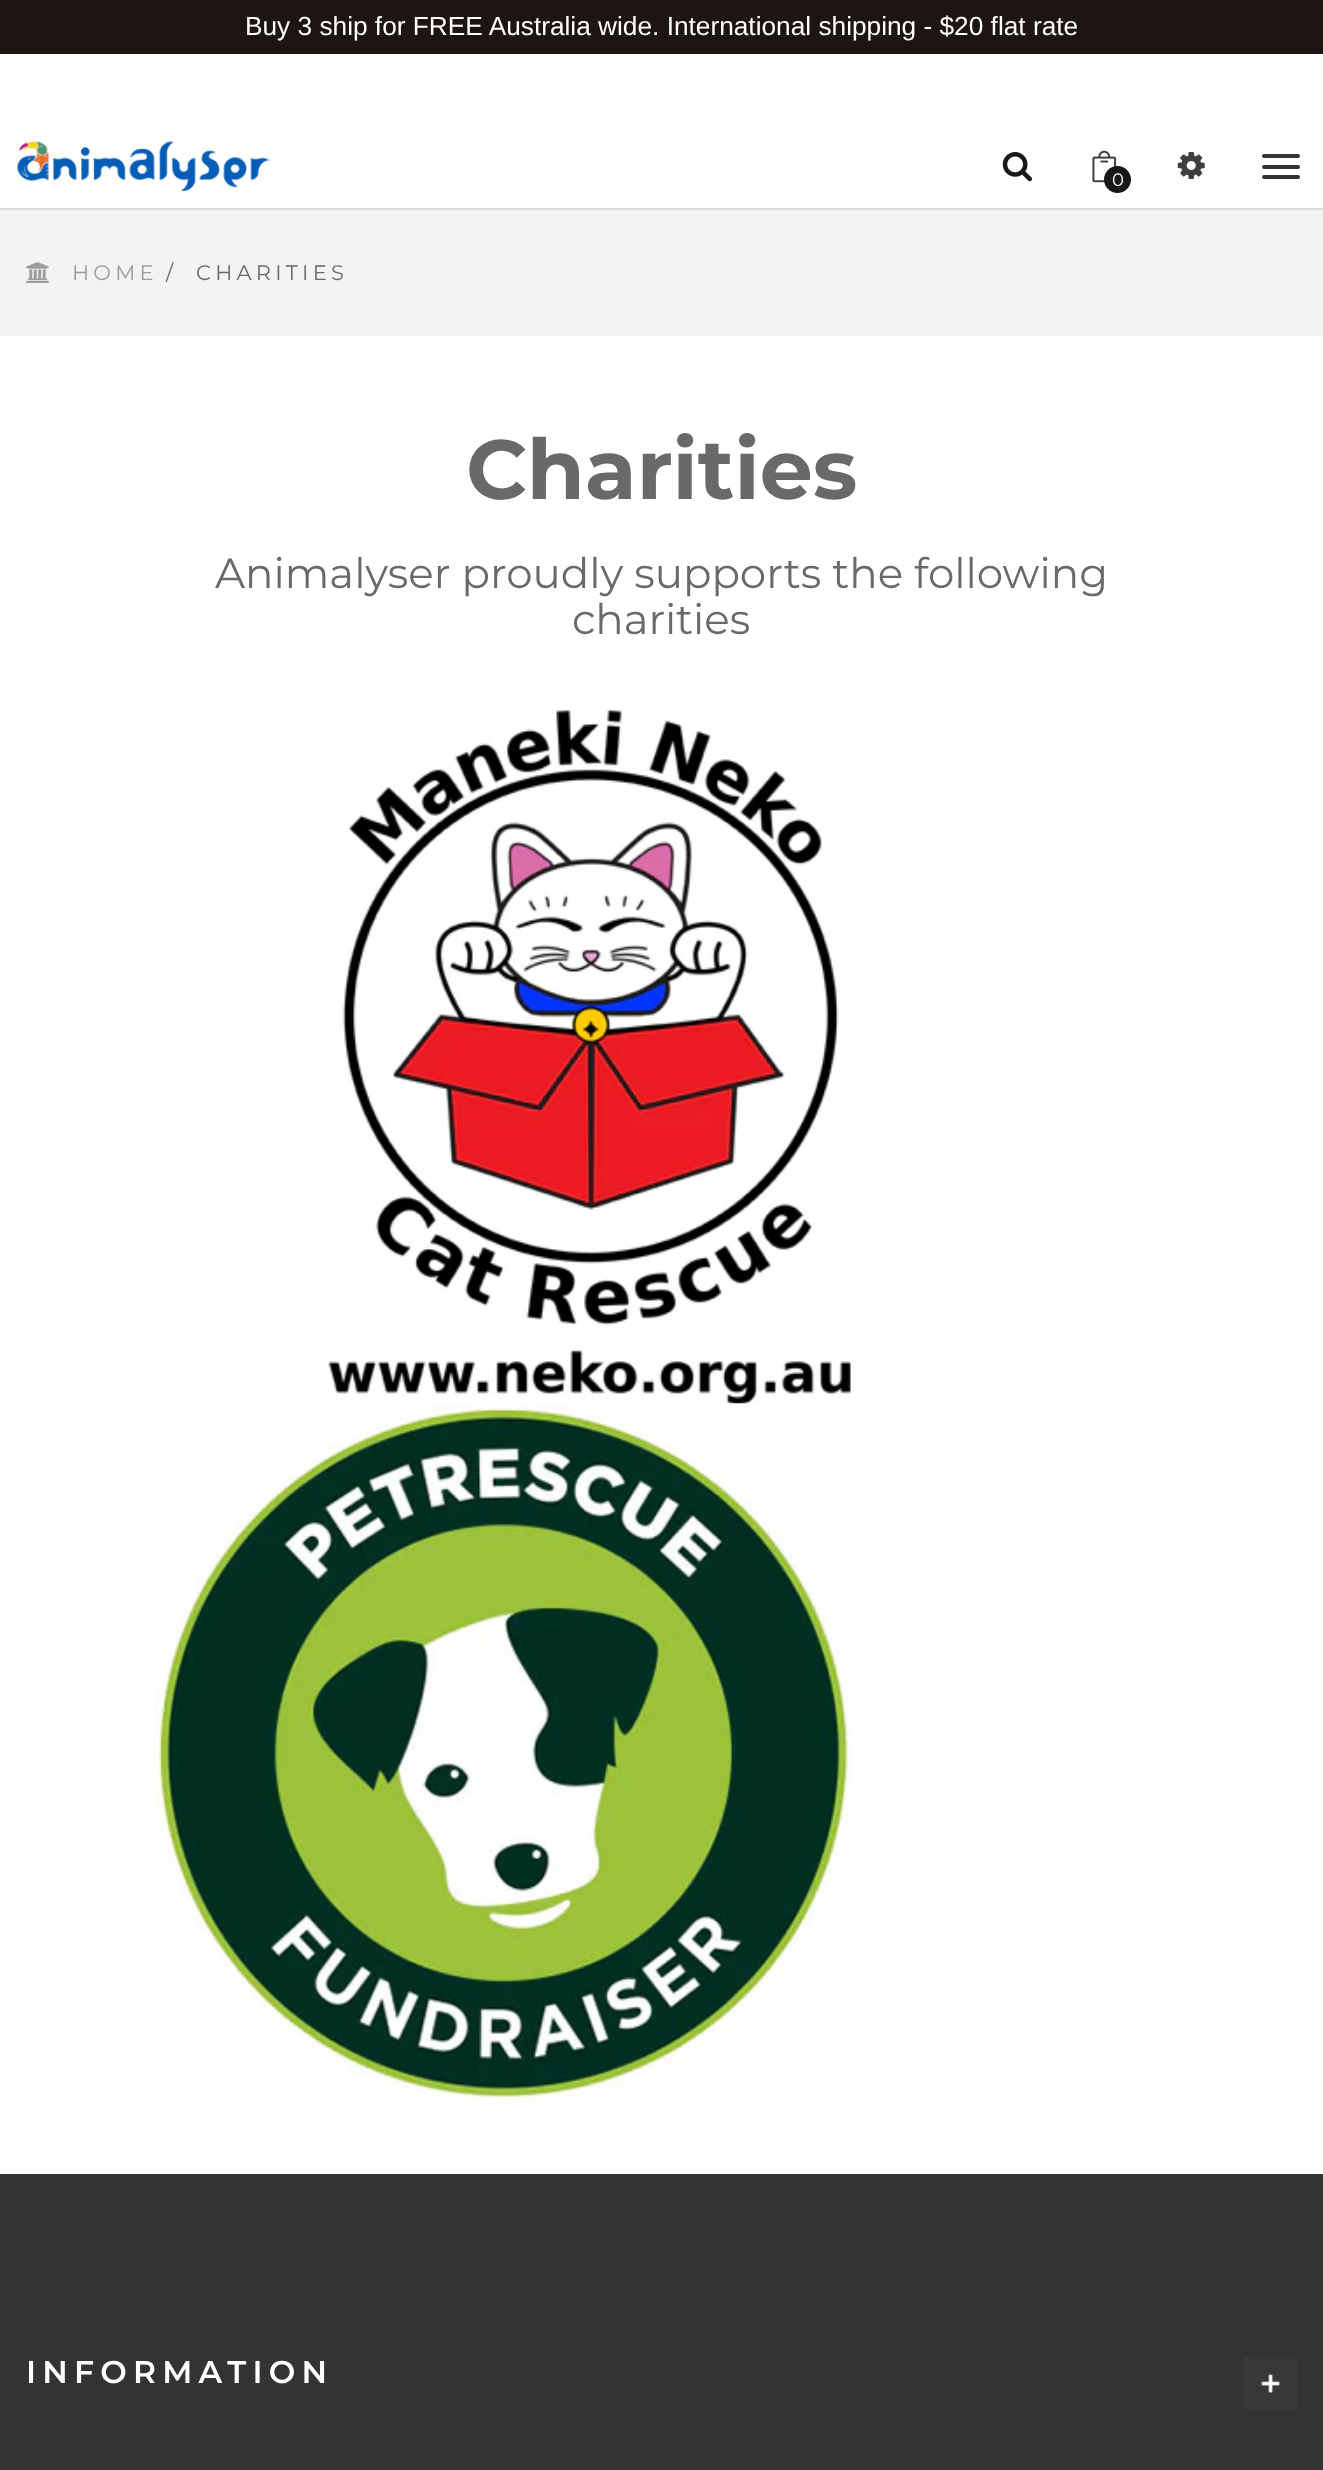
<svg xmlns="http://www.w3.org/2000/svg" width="1323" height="2470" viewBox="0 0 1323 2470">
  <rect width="100%" height="100%" fill="rgb(255,255,255)"/>
  <rect x="0" y="0" width="1323" height="54" fill="rgb(28,21,18)"/>
  <text x="245" y="35" font-family="Liberation Sans" font-size="26.25" fill="rgb(255,255,255)">Buy 3 ship for FREE Australia wide. International shipping - $20 flat rate</text>
  <rect x="0" y="208" width="1323" height="2" fill="rgb(220,220,220)"/>
  <image x="17" y="141" width="253" height="51" href="pic1.png"/>
  <image x="1002" y="152" width="30" height="30" href="pic2.png"/>
  <image x="1092" y="150" width="25" height="33" href="pic3.png"/>
  <circle cx="1117.5" cy="179.5" r="13.5" fill="rgb(24,24,24)"/>
  <text x="1112" y="186" font-family="Montserrat" font-size="18" fill="rgb(255,255,255)">0</text>
  <image x="1177" y="152" width="28" height="27" href="pic4.png"/>
  <rect x="1262" y="154" width="38" height="4" rx="2" fill="rgb(51,51,51)"/>
  <rect x="1262" y="165" width="38" height="4" rx="2" fill="rgb(51,51,51)"/>
  <rect x="1262" y="175" width="38" height="4" rx="2" fill="rgb(51,51,51)"/>
  <rect x="0" y="210" width="1323" height="126" fill="rgb(243,243,243)"/>
  <image x="26" y="262" width="23" height="21" href="pic5.png"/>
  <text x="72" y="280" font-family="Montserrat" font-size="21" letter-spacing="4.25" fill="rgb(157,157,157)">HOME</text>
  <g font-family="Montserrat" font-size="21" letter-spacing="4.25" fill="rgb(105,105,105)">
    <text x="166" y="280">/</text>
    <text x="196" y="280">CHARITIES</text>
  </g>
  <text x="466" y="499" font-family="Montserrat" font-size="84" font-weight="bold" fill="rgb(105,105,105)">Charities</text>
  <g font-family="Montserrat" font-size="42" fill="rgb(105,105,105)">
    <text x="215" y="588">Animalyser proudly supports the following</text>
    <text x="572" y="634">charities</text>
  </g>
  <image x="326" y="710" width="525" height="694" href="pic6.png"/>
  <image x="154" y="1403" width="700" height="701" href="pic7.png"/>
  <rect x="0" y="2174" width="1323" height="296" fill="rgb(51,51,51)"/>
  <text x="26" y="2383" font-family="Montserrat" font-size="31.5" font-weight="600" letter-spacing="6.25" fill="rgb(255,255,255)">INFORMATION</text>
  <rect x="1244" y="2357" width="53" height="53" fill="rgb(56,56,56)"/>
  <image x="1261" y="2374" width="19" height="19" href="pic8.png"/>
</svg>
